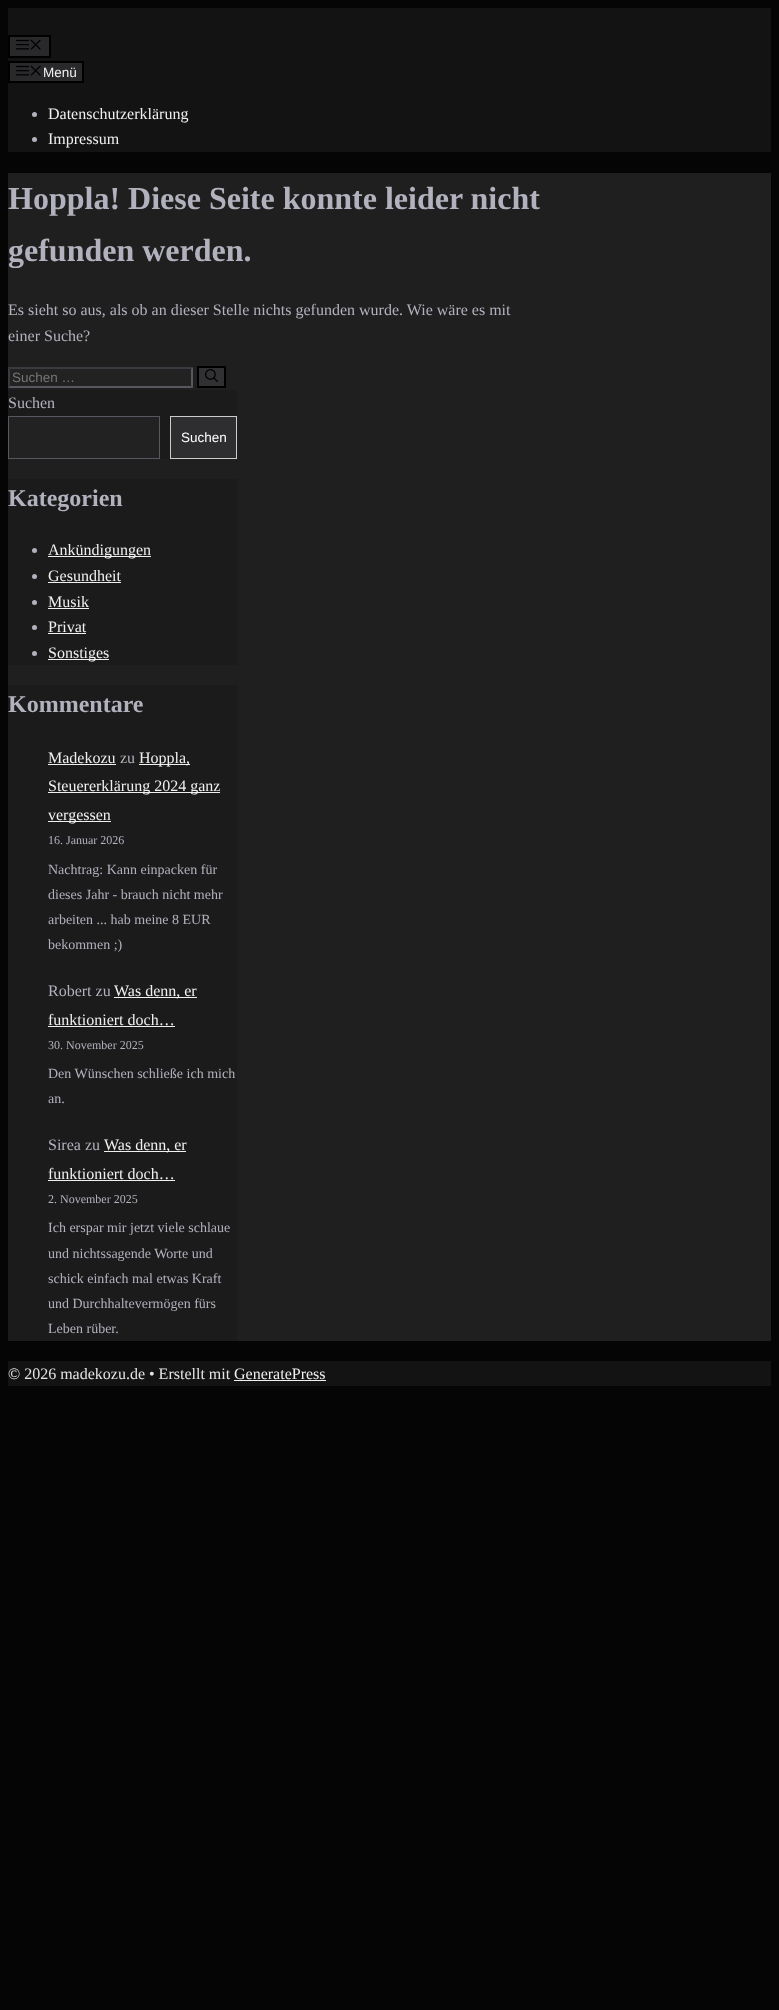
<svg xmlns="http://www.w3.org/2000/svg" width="779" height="2010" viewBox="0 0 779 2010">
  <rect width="100%" height="100%" fill="rgb(5,5,5)"/>
  <rect x="8" y="8" width="763" height="144" fill="rgb(20,19,19)"/>
  <rect x="9" y="36" width="41" height="21" fill="rgb(41,40,43)" stroke="rgb(0,0,0)" stroke-width="2"/>
  <image x="16" y="39" width="13" height="11" href="pic1.png"/>
  <image x="30" y="39" width="11" height="11" href="pic2.png"/>
  <rect x="9" y="62" width="74" height="20" fill="rgb(41,40,43)" stroke="rgb(0,0,0)" stroke-width="2"/>
  <image x="16" y="65" width="13" height="11" href="pic1.png"/>
  <image x="30" y="65" width="11" height="11" href="pic2.png"/>
  <text x="43" y="77" font-family="Liberation Sans" font-size="13.5" fill="rgb(240,240,240)">Menü</text>
  <circle cx="34.5" cy="114.5" r="2.5" fill="rgb(178,178,190)"/>
  <text x="48" y="119" font-family="Liberation Serif" font-size="16" fill="rgb(240,240,240)">Datenschutzerklärung</text>
  <circle cx="34.5" cy="139.5" r="2.5" fill="rgb(178,178,190)"/>
  <text x="48" y="144" font-family="Liberation Serif" font-size="16" fill="rgb(240,240,240)">Impressum</text>
  <rect x="8" y="173" width="763" height="1168" fill="rgb(31,31,31)"/>
  <g font-family="Liberation Serif" font-size="32" font-weight="bold" fill="rgb(178,178,190)">
    <text>
      <tspan x="8" y="209">Hoppla! Diese Seite konnte leider nicht</tspan>
      <tspan x="8" y="261">gefunden werden.</tspan>
    </text>
  </g>
  <g font-family="Liberation Serif" font-size="16" fill="rgb(178,178,190)">
    <text>
      <tspan x="8" y="315">Es sieht so aus, als ob an dieser Stelle nichts gefunden wurde. Wie wäre es mit</tspan>
      <tspan x="8" y="341">einer Suche?</tspan>
    </text>
  </g>
  <rect x="8" y="367" width="185" height="21" fill="rgb(34,34,34)"/>
  <path d="M8 367H193L191 369H10Z" fill="rgb(58,58,64)"/>
  <path d="M193 367V388L191 386V369Z" fill="rgb(87,87,96)"/>
  <path d="M193 388H8L10 386H191Z" fill="rgb(87,87,96)"/>
  <path d="M8 388V367L10 369V386Z" fill="rgb(58,58,64)"/>
  <text x="12" y="382" font-family="Liberation Sans" font-size="13.5" fill="rgb(117,117,117)">Suchen …</text>
  <rect x="198" y="367" width="27" height="20" fill="rgb(49,49,51)" stroke="rgb(0,0,0)" stroke-width="2"/>
  <image x="205" y="369" width="13" height="13" href="pic3.png"/>
  <rect x="8" y="390" width="229" height="69" fill="rgb(27,27,27)"/>
  <text x="8" y="408" font-family="Liberation Serif" font-size="16" fill="rgb(178,178,190)">Suchen</text>
  <rect x="8.5" y="416.5" width="151" height="42" fill="rgb(34,34,34)" stroke="rgb(87,87,96)"/>
  <rect x="170.5" y="416.5" width="66" height="42" fill="rgb(46,46,49)" stroke="rgb(204,204,204)"/>
  <text x="181" y="442" font-family="Liberation Sans" font-size="13.5" fill="rgb(255,255,255)">Suchen</text>
  <rect x="8" y="479" width="229" height="186" fill="rgb(27,27,27)"/>
  <text x="8" y="506" font-family="Liberation Serif" font-size="24" font-weight="bold" fill="rgb(178,178,190)">Kategorien</text>
  <circle cx="34.5" cy="550.5" r="2.5" fill="rgb(178,178,190)"/>
  <rect x="48" y="556" width="103" height="1" fill="rgb(240,240,240)"/>
  <text x="48" y="555" font-family="Liberation Serif" font-size="16" fill="rgb(240,240,240)">Ankündigungen</text>
  <circle cx="34.5" cy="576.5" r="2.5" fill="rgb(178,178,190)"/>
  <text x="48" y="581" font-family="Liberation Serif" font-size="16" fill="rgb(240,240,240)">Gesundheit</text>
  <rect x="48" y="582" width="73" height="1" fill="rgb(240,240,240)"/>
  <circle cx="34.5" cy="602.5" r="2.5" fill="rgb(178,178,190)"/>
  <text x="48" y="607" font-family="Liberation Serif" font-size="16" fill="rgb(240,240,240)">Musik</text>
  <rect x="48" y="608" width="41" height="1" fill="rgb(240,240,240)"/>
  <circle cx="34.5" cy="627.5" r="2.5" fill="rgb(178,178,190)"/>
  <text x="48" y="632" font-family="Liberation Serif" font-size="16" fill="rgb(240,240,240)">Privat</text>
  <rect x="48" y="633" width="38" height="1" fill="rgb(240,240,240)"/>
  <circle cx="34.5" cy="653.5" r="2.5" fill="rgb(178,178,190)"/>
  <rect x="48" y="659" width="61" height="1" fill="rgb(240,240,240)"/>
  <text x="48" y="658" font-family="Liberation Serif" font-size="16" fill="rgb(240,240,240)">Sonstiges</text>
  <rect x="8" y="685" width="229" height="656" fill="rgb(27,27,27)"/>
  <text x="8" y="712" font-family="Liberation Serif" font-size="24" font-weight="bold" fill="rgb(178,178,190)">Kommentare</text>
  <text x="48" y="763" font-family="Liberation Serif" font-size="16" fill="rgb(240,240,240)">Madekozu</text>
  <rect x="48" y="764" width="68" height="1" fill="rgb(240,240,240)"/>
  <text x="120" y="763" font-family="Liberation Serif" font-size="16" fill="rgb(178,178,190)">zu</text>
  <rect x="139" y="764" width="51" height="1" fill="rgb(240,240,240)"/>
  <text x="139" y="763" font-family="Liberation Serif" font-size="16" fill="rgb(240,240,240)">Hoppla,</text>
  <rect x="48" y="792" width="172" height="1" fill="rgb(240,240,240)"/>
  <text x="48" y="791" font-family="Liberation Serif" font-size="16" fill="rgb(240,240,240)">Steuererklärung 2024 ganz</text>
  <rect x="48" y="821" width="63" height="1" fill="rgb(240,240,240)"/>
  <text x="48" y="820" font-family="Liberation Serif" font-size="16" fill="rgb(240,240,240)">vergessen</text>
  <text x="48" y="844" font-family="Liberation Serif" font-size="12" fill="rgb(178,178,190)">16. Januar 2026</text>
  <g font-family="Liberation Serif" font-size="14" fill="rgb(178,178,190)">
    <text>
      <tspan x="48" y="874">Nachtrag: Kann einpacken für</tspan>
      <tspan x="48" y="899">dieses Jahr - brauch nicht mehr</tspan>
      <tspan x="48" y="924">arbeiten ... hab meine 8 EUR</tspan>
      <tspan x="48" y="949">bekommen ;)</tspan>
    </text>
  </g>
  <text x="48" y="996" font-family="Liberation Serif" font-size="16" fill="rgb(178,178,190)">Robert zu</text>
  <rect x="114" y="997" width="83" height="1" fill="rgb(240,240,240)"/>
  <g font-family="Liberation Serif" font-size="16" fill="rgb(240,240,240)">
    <text x="114" y="996">Was denn, er</text>
    <text x="48" y="1025">funktioniert doch…</text>
  </g>
  <rect x="48" y="1026" width="127" height="1" fill="rgb(240,240,240)"/>
  <text x="48" y="1049" font-family="Liberation Serif" font-size="12" fill="rgb(178,178,190)">30. November 2025</text>
  <g font-family="Liberation Serif" font-size="14" fill="rgb(178,178,190)">
    <text>
      <tspan x="48" y="1078">Den Wünschen schließe ich mich</tspan>
      <tspan x="48" y="1103">an.</tspan>
    </text>
  </g>
  <text x="48" y="1150" font-family="Liberation Serif" font-size="16" fill="rgb(178,178,190)">Sirea zu</text>
  <rect x="104" y="1151" width="82" height="1" fill="rgb(240,240,240)"/>
  <g font-family="Liberation Serif" font-size="16" fill="rgb(240,240,240)">
    <text x="104" y="1150">Was denn, er</text>
    <text x="48" y="1179">funktioniert doch…</text>
  </g>
  <rect x="48" y="1180" width="127" height="1" fill="rgb(240,240,240)"/>
  <text x="48" y="1203" font-family="Liberation Serif" font-size="12" fill="rgb(178,178,190)">2. November 2025</text>
  <g font-family="Liberation Serif" font-size="14" fill="rgb(178,178,190)">
    <text>
      <tspan x="48" y="1232">Ich erspar mir jetzt viele schlaue</tspan>
      <tspan x="48" y="1258">und nichtssagende Worte und</tspan>
      <tspan x="48" y="1283">schick einfach mal etwas Kraft</tspan>
      <tspan x="48" y="1308">und Durchhaltevermögen fürs</tspan>
      <tspan x="48" y="1333">Leben rüber.</tspan>
    </text>
  </g>
  <rect x="8" y="1361" width="763" height="25" fill="rgb(20,19,19)"/>
  <text x="8" y="1379" font-family="Liberation Serif" font-size="16" fill="rgb(229,229,229)">© 2026 madekozu.de • Erstellt mit</text>
  <text x="234" y="1379" font-family="Liberation Serif" font-size="16" fill="rgb(240,240,240)">GeneratePress</text>
  <rect x="234" y="1380" width="92" height="1" fill="rgb(240,240,240)"/>
</svg>
